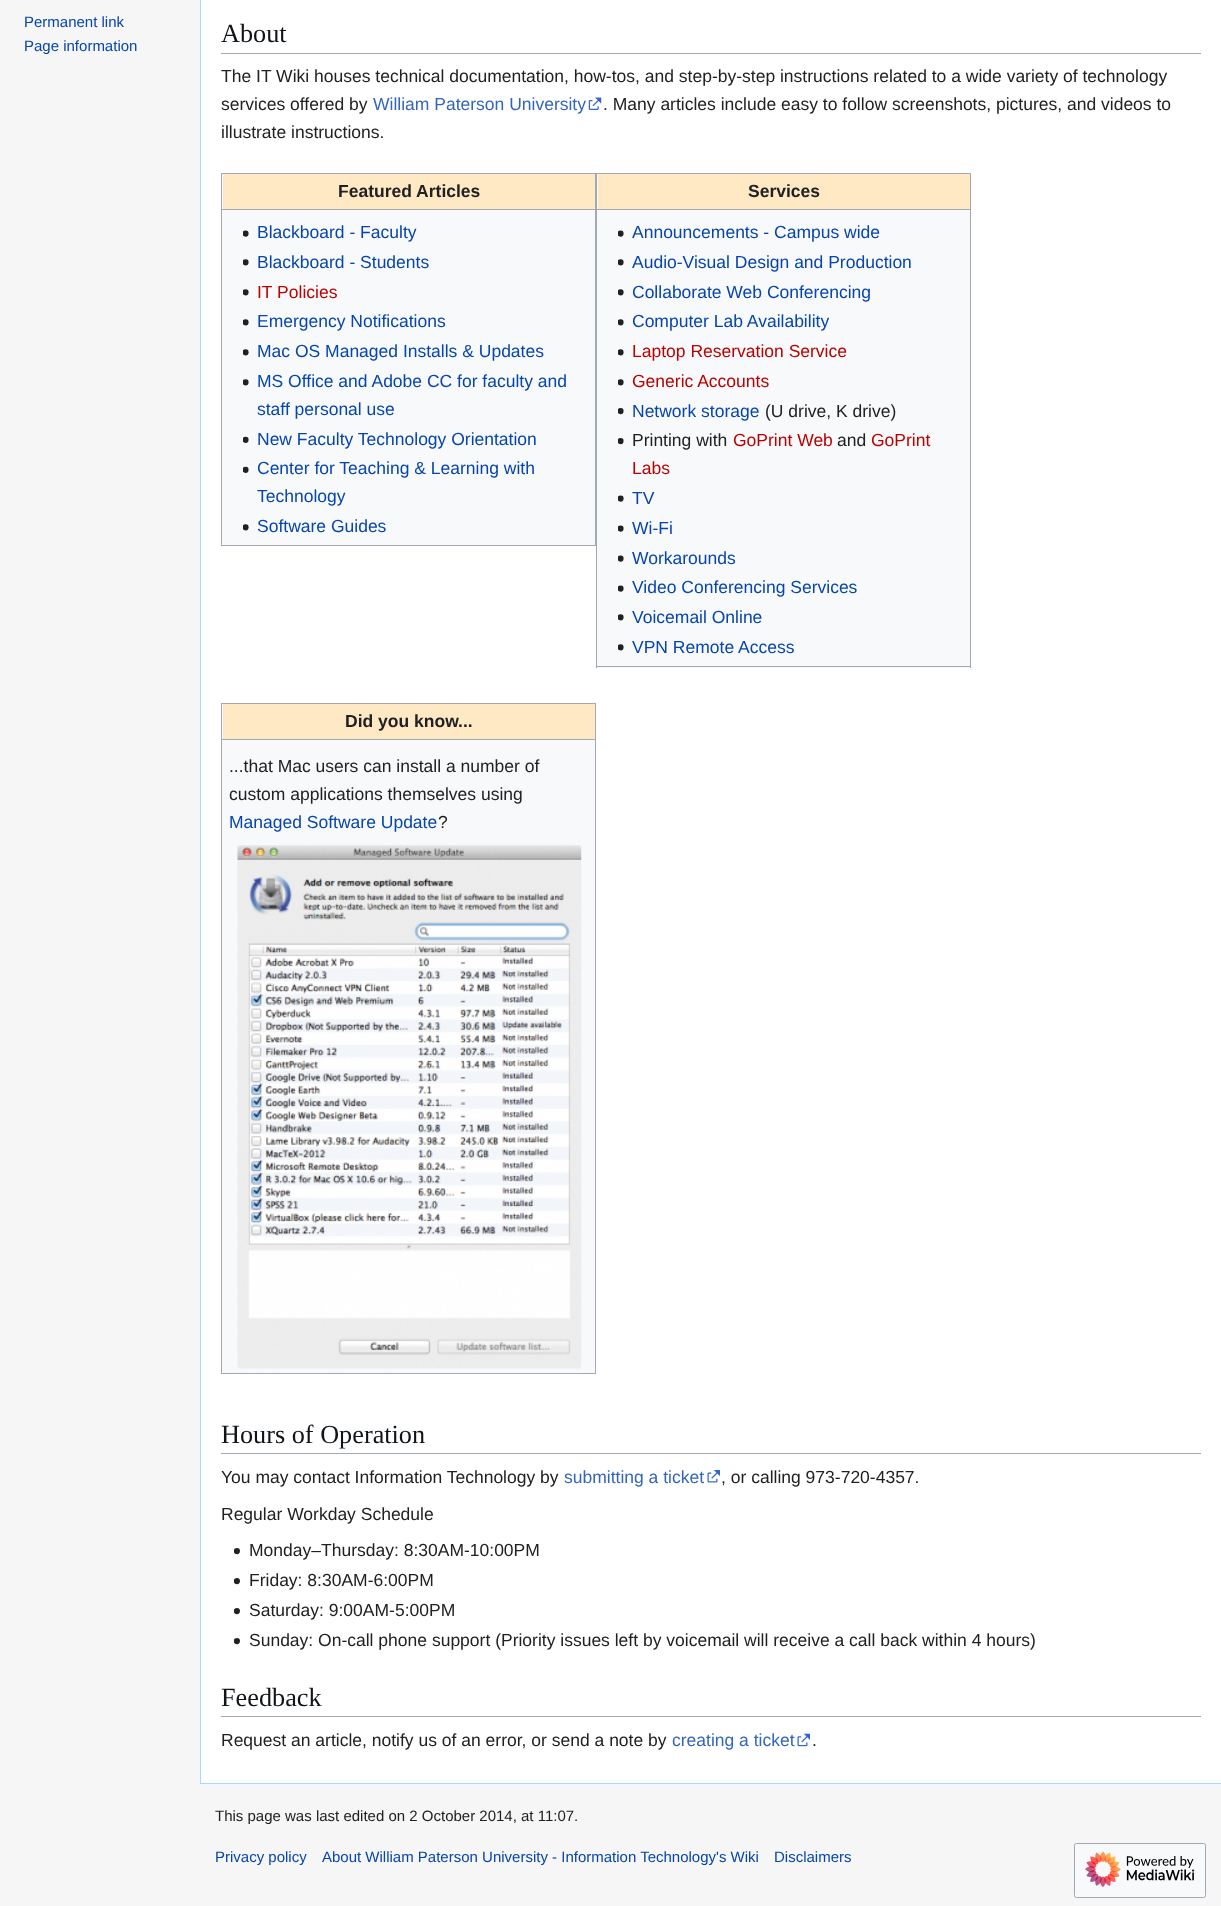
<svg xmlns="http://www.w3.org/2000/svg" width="1221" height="1906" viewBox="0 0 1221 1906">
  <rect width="100%" height="100%" fill="rgb(246,246,246)"/>
  <g font-family="Liberation Sans" font-size="15" fill="rgb(6,69,173)">
    <text>
      <tspan x="24" y="27">Permanent link</tspan>
      <tspan x="24" y="51">Page information</tspan>
    </text>
  </g>
  <rect x="201" y="0" width="1020" height="1783" fill="rgb(255,255,255)"/>
  <rect x="200" y="1783" width="1021" height="1" fill="rgb(167,215,249)"/>
  <rect x="200" y="0" width="1" height="1784" fill="rgb(167,215,249)"/>
  <rect x="221" y="53" width="980" height="1" fill="rgb(162,169,177)"/>
  <text x="221" y="42" font-family="Liberation Serif" font-size="26.25" fill="rgb(16,20,24)">About</text>
  <g font-family="Liberation Sans" font-size="17.5" fill="rgb(32,33,34)">
    <text>
      <tspan x="221" y="82">The IT Wiki houses technical documentation, how-tos, and step-by-step instructions related to a wide variety of technology</tspan>
      <tspan x="221" y="110">services offered by</tspan>
    </text>
  </g>
  <text x="373" y="110" font-family="Liberation Sans" font-size="17.5" fill="rgb(51,102,187)">William Paterson University</text>
  <image x="588" y="97" width="14" height="13" href="pic1.png"/>
  <g font-family="Liberation Sans" font-size="17.5" fill="rgb(32,33,34)">
    <text x="603" y="110">. Many articles include easy to follow screenshots, pictures, and videos to</text>
    <text x="221" y="138">illustrate instructions.</text>
  </g>
  <rect x="222" y="174" width="373" height="371" fill="rgb(248,249,250)"/>
  <rect x="221" y="173" width="750" height="1" fill="rgb(162,169,177)"/>
  <rect x="595" y="173" width="1" height="373" fill="rgb(162,169,177)"/>
  <rect x="221" y="545" width="375" height="1" fill="rgb(162,169,177)"/>
  <rect x="221" y="173" width="1" height="373" fill="rgb(162,169,177)"/>
  <rect x="223" y="174" width="372" height="35" fill="rgb(255,233,197)"/>
  <text x="338" y="197" font-family="Liberation Sans" font-size="17.5" font-weight="bold" fill="rgb(32,33,34)">Featured Articles</text>
  <rect x="221" y="209" width="375" height="1" fill="rgb(162,169,177)"/>
  <image x="243" y="230" width="6" height="7" href="pic2.png"/>
  <text x="257" y="238" font-family="Liberation Sans" font-size="17.5" fill="rgb(6,69,173)">Blackboard - Faculty</text>
  <image x="243" y="259" width="6" height="7" href="pic3.png"/>
  <text x="257" y="268" font-family="Liberation Sans" font-size="17.5" fill="rgb(6,69,173)">Blackboard - Students</text>
  <image x="243" y="289" width="6" height="7" href="pic3.png"/>
  <text x="257" y="298" font-family="Liberation Sans" font-size="17.5" fill="rgb(186,0,0)">IT Policies</text>
  <image x="243" y="319" width="6" height="7" href="pic3.png"/>
  <text x="257" y="327" font-family="Liberation Sans" font-size="17.5" fill="rgb(6,69,173)">Emergency Notifications</text>
  <image x="243" y="349" width="6" height="7" href="pic3.png"/>
  <text x="257" y="357" font-family="Liberation Sans" font-size="17.5" fill="rgb(6,69,173)">Mac OS Managed Installs &amp; Updates</text>
  <image x="243" y="379" width="6" height="7" href="pic3.png"/>
  <g font-family="Liberation Sans" font-size="17.5" fill="rgb(6,69,173)">
    <text>
      <tspan x="257" y="387">MS Office and Adobe CC for faculty and</tspan>
      <tspan x="257" y="415">staff personal use</tspan>
    </text>
  </g>
  <image x="243" y="436" width="6" height="7" href="pic4.png"/>
  <text x="257" y="445" font-family="Liberation Sans" font-size="17.5" fill="rgb(6,69,173)">New Faculty Technology Orientation</text>
  <image x="243" y="466" width="6" height="7" href="pic4.png"/>
  <g font-family="Liberation Sans" font-size="17.5" fill="rgb(6,69,173)">
    <text>
      <tspan x="257" y="474">Center for Teaching &amp; Learning with</tspan>
      <tspan x="257" y="502">Technology</tspan>
    </text>
  </g>
  <image x="243" y="524" width="6" height="7" href="pic3.png"/>
  <text x="257" y="532" font-family="Liberation Sans" font-size="17.5" fill="rgb(6,69,173)">Software Guides</text>
  <rect x="597" y="174" width="373" height="494" fill="rgb(248,249,250)"/>
  <rect x="970" y="173" width="1" height="495" fill="rgb(162,169,177)"/>
  <rect x="596" y="666" width="375" height="1" fill="rgb(162,169,177)"/>
  <rect x="596" y="173" width="1" height="495" fill="rgb(162,169,177)"/>
  <rect x="598" y="174" width="372" height="35" fill="rgb(255,233,197)"/>
  <text x="748" y="197" font-family="Liberation Sans" font-size="17.5" font-weight="bold" fill="rgb(32,33,34)">Services</text>
  <rect x="596" y="209" width="375" height="1" fill="rgb(162,169,177)"/>
  <image x="618" y="230" width="6" height="7" href="pic2.png"/>
  <text x="632" y="238" font-family="Liberation Sans" font-size="17.5" fill="rgb(6,69,173)">Announcements - Campus wide</text>
  <image x="618" y="259" width="6" height="7" href="pic3.png"/>
  <text x="632" y="268" font-family="Liberation Sans" font-size="17.5" fill="rgb(6,69,173)">Audio-Visual Design and Production</text>
  <image x="618" y="289" width="6" height="7" href="pic3.png"/>
  <text x="632" y="298" font-family="Liberation Sans" font-size="17.5" fill="rgb(6,69,173)">Collaborate Web Conferencing</text>
  <image x="618" y="319" width="6" height="7" href="pic3.png"/>
  <text x="632" y="327" font-family="Liberation Sans" font-size="17.5" fill="rgb(6,69,173)">Computer Lab Availability</text>
  <image x="618" y="349" width="6" height="7" href="pic3.png"/>
  <text x="632" y="357" font-family="Liberation Sans" font-size="17.5" fill="rgb(186,0,0)">Laptop Reservation Service</text>
  <image x="618" y="379" width="6" height="7" href="pic3.png"/>
  <text x="632" y="387" font-family="Liberation Sans" font-size="17.5" fill="rgb(186,0,0)">Generic Accounts</text>
  <image x="618" y="408" width="6" height="7" href="pic5.png"/>
  <text x="632" y="417" font-family="Liberation Sans" font-size="17.5" fill="rgb(6,69,173)">Network storage</text>
  <text x="765" y="417" font-family="Liberation Sans" font-size="17.5" fill="rgb(32,33,34)">(U drive, K drive)</text>
  <image x="618" y="438" width="6" height="7" href="pic5.png"/>
  <text x="632" y="446" font-family="Liberation Sans" font-size="17.5" fill="rgb(32,33,34)">Printing with</text>
  <text x="733" y="446" font-family="Liberation Sans" font-size="17.5" fill="rgb(186,0,0)">GoPrint Web</text>
  <text x="837" y="446" font-family="Liberation Sans" font-size="17.5" fill="rgb(32,33,34)">and</text>
  <g font-family="Liberation Sans" font-size="17.5" fill="rgb(186,0,0)">
    <text x="871" y="446">GoPrint</text>
    <text x="632" y="474">Labs</text>
  </g>
  <image x="618" y="495" width="6" height="7" href="pic2.png"/>
  <text x="632" y="504" font-family="Liberation Sans" font-size="17.5" fill="rgb(6,69,173)">TV</text>
  <image x="618" y="525" width="6" height="7" href="pic2.png"/>
  <text x="632" y="534" font-family="Liberation Sans" font-size="17.5" fill="rgb(6,69,173)">Wi-Fi</text>
  <image x="618" y="555" width="6" height="7" href="pic2.png"/>
  <text x="632" y="564" font-family="Liberation Sans" font-size="17.5" fill="rgb(6,69,173)">Workarounds</text>
  <image x="618" y="585" width="6" height="7" href="pic2.png"/>
  <text x="632" y="593" font-family="Liberation Sans" font-size="17.5" fill="rgb(6,69,173)">Video Conferencing Services</text>
  <image x="618" y="614" width="6" height="7" href="pic3.png"/>
  <text x="632" y="623" font-family="Liberation Sans" font-size="17.5" fill="rgb(6,69,173)">Voicemail Online</text>
  <image x="618" y="644" width="6" height="7" href="pic3.png"/>
  <text x="632" y="653" font-family="Liberation Sans" font-size="17.5" fill="rgb(6,69,173)">VPN Remote Access</text>
  <rect x="222" y="704" width="373" height="669" fill="rgb(248,249,250)"/>
  <rect x="221" y="703" width="375" height="1" fill="rgb(162,169,177)"/>
  <rect x="595" y="703" width="1" height="671" fill="rgb(162,169,177)"/>
  <rect x="221" y="1373" width="375" height="1" fill="rgb(162,169,177)"/>
  <rect x="221" y="703" width="1" height="671" fill="rgb(162,169,177)"/>
  <rect x="223" y="704" width="372" height="35" fill="rgb(255,233,197)"/>
  <text x="345" y="727" font-family="Liberation Sans" font-size="17.5" font-weight="bold" fill="rgb(32,33,34)">Did you know...</text>
  <rect x="221" y="739" width="375" height="1" fill="rgb(162,169,177)"/>
  <g font-family="Liberation Sans" font-size="17.5" fill="rgb(32,33,34)">
    <text>
      <tspan x="229" y="772">...that Mac users can install a number of</tspan>
      <tspan x="229" y="800">custom applications themselves using</tspan>
    </text>
  </g>
  <text x="229" y="828" font-family="Liberation Sans" font-size="17.5" fill="rgb(6,69,173)">Managed Software Update</text>
  <text x="438" y="828" font-family="Liberation Sans" font-size="17.5" fill="rgb(32,33,34)">?</text>
  <image x="237" y="845" width="345" height="524" href="pic6.png"/>
  <rect x="221" y="1453" width="980" height="1" fill="rgb(162,169,177)"/>
  <text x="221" y="1443" font-family="Liberation Serif" font-size="26.25" fill="rgb(16,20,24)">Hours of Operation</text>
  <text x="221" y="1483" font-family="Liberation Sans" font-size="17.5" fill="rgb(32,33,34)">You may contact Information Technology by</text>
  <text x="564" y="1483" font-family="Liberation Sans" font-size="17.5" fill="rgb(51,102,187)">submitting a ticket</text>
  <image x="707" y="1470" width="13" height="13" href="pic7.png"/>
  <g font-family="Liberation Sans" font-size="17.5" fill="rgb(32,33,34)">
    <text x="721" y="1483">, or calling 973-720-4357.</text>
    <text x="221" y="1520">Regular Workday Schedule</text>
  </g>
  <image x="234" y="1548" width="6" height="7" href="pic8.png"/>
  <text x="249" y="1556" font-family="Liberation Sans" font-size="17.5" fill="rgb(32,33,34)">Monday–Thursday: 8:30AM-10:00PM</text>
  <image x="234" y="1578" width="6" height="7" href="pic8.png"/>
  <text x="249" y="1586" font-family="Liberation Sans" font-size="17.5" fill="rgb(32,33,34)">Friday: 8:30AM-6:00PM</text>
  <image x="234" y="1608" width="6" height="7" href="pic8.png"/>
  <text x="249" y="1616" font-family="Liberation Sans" font-size="17.5" fill="rgb(32,33,34)">Saturday: 9:00AM-5:00PM</text>
  <image x="234" y="1638" width="6" height="7" href="pic8.png"/>
  <text x="249" y="1646" font-family="Liberation Sans" font-size="17.5" fill="rgb(32,33,34)">Sunday: On-call phone support (Priority issues left by voicemail will receive a call back within 4 hours)</text>
  <rect x="221" y="1716" width="980" height="1" fill="rgb(162,169,177)"/>
  <text x="221" y="1706" font-family="Liberation Serif" font-size="26.25" fill="rgb(16,20,24)">Feedback</text>
  <text x="221" y="1746" font-family="Liberation Sans" font-size="17.5" fill="rgb(32,33,34)">Request an article, notify us of an error, or send a note by</text>
  <text x="672" y="1746" font-family="Liberation Sans" font-size="17.5" fill="rgb(51,102,187)">creating a ticket</text>
  <image x="797" y="1733" width="13" height="14" href="pic9.png"/>
  <text x="812" y="1746" font-family="Liberation Sans" font-size="17.5" fill="rgb(32,33,34)">.</text>
  <text x="215" y="1821" font-family="Liberation Sans" font-size="15" fill="rgb(32,33,34)">This page was last edited on 2 October 2014, at 11:07.</text>
  <g font-family="Liberation Sans" font-size="15" fill="rgb(6,69,173)">
    <text x="215" y="1862">Privacy policy</text>
    <text x="322" y="1862">About William Paterson University - Information Technology's Wiki</text>
    <text x="774" y="1862">Disclaimers</text>
  </g>
  <rect x="1074.5" y="1843.5" width="131" height="54" rx="2" fill="rgb(248,249,250)" stroke="rgb(162,169,177)"/>
  <image x="1085" y="1851" width="110" height="37" href="pic10.png"/>
</svg>
